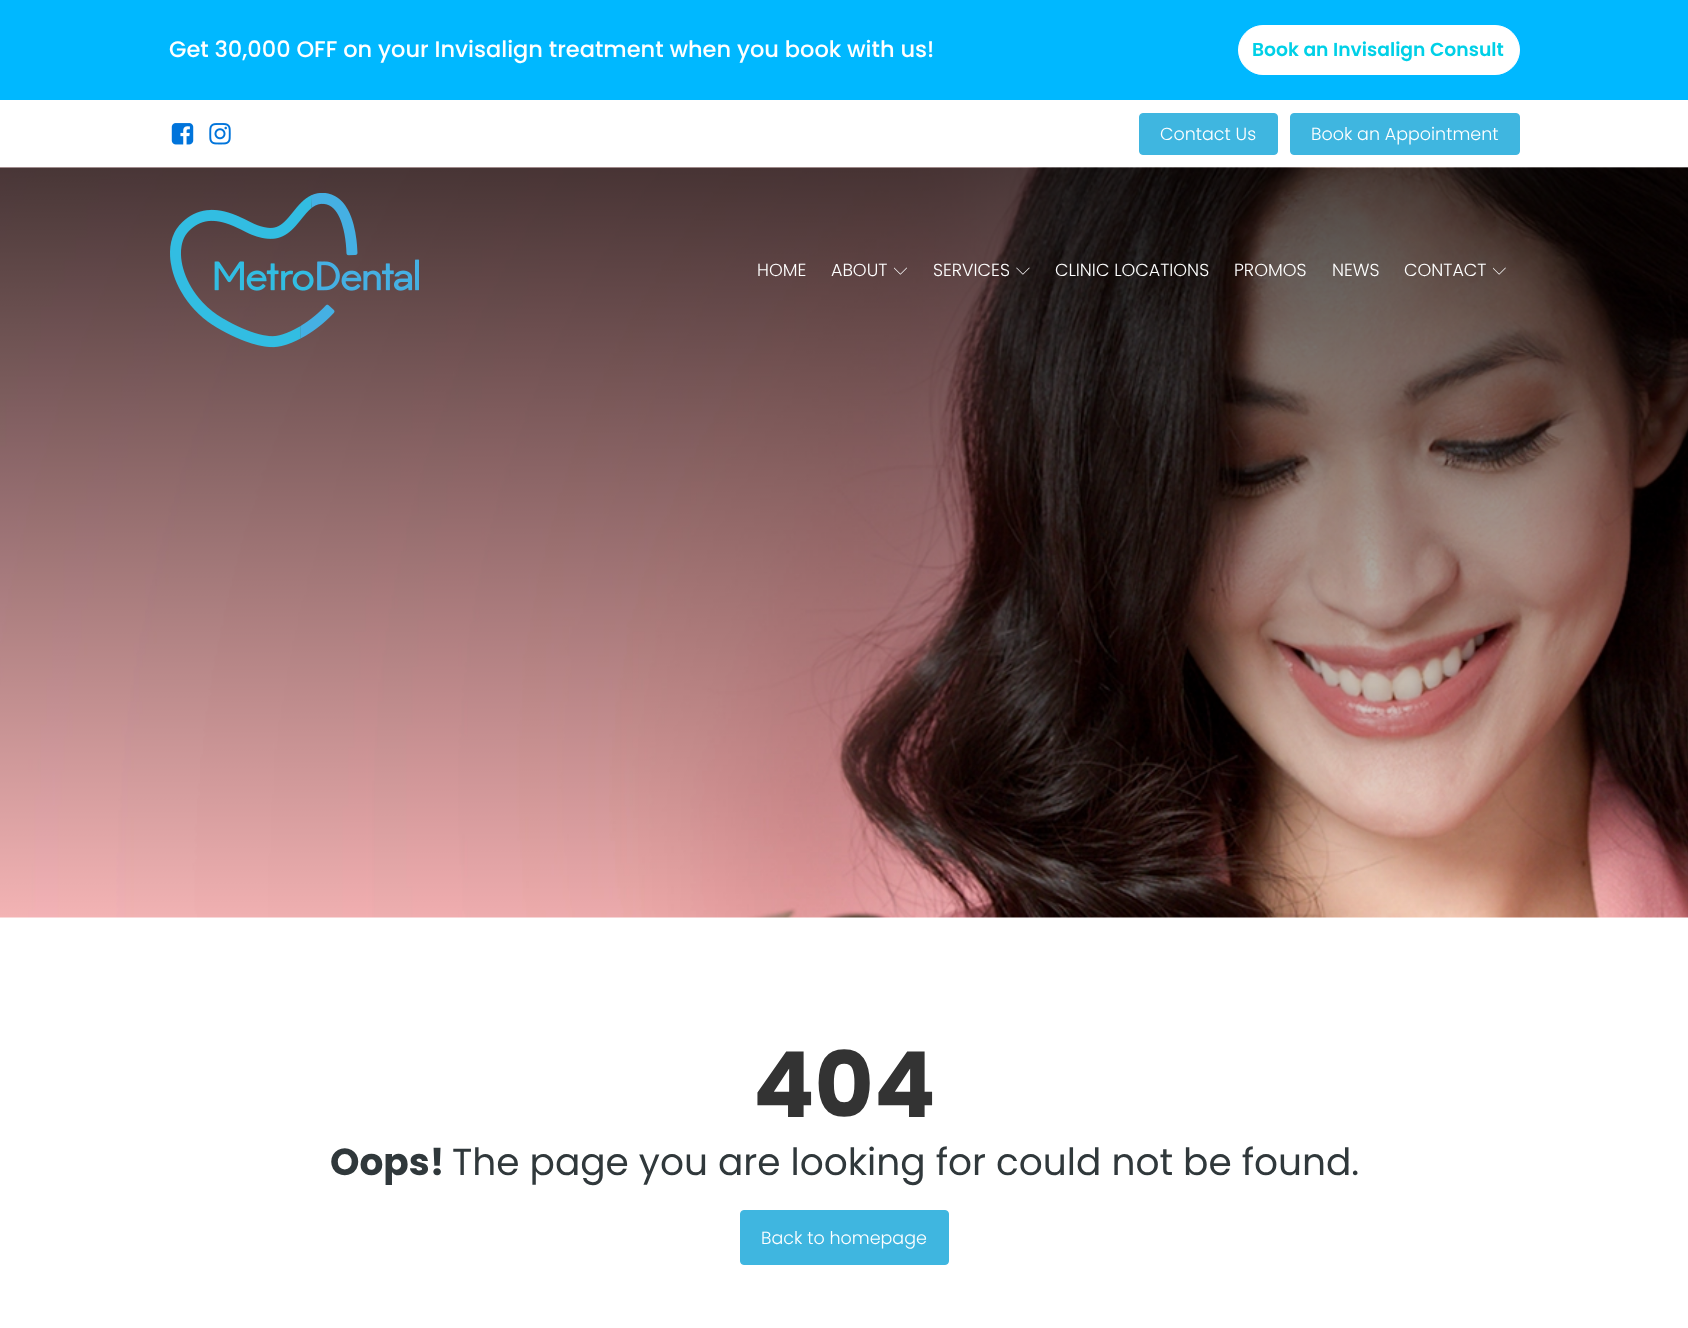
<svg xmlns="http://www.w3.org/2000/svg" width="1688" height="1328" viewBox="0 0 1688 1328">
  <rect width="100%" height="100%" fill="rgb(255,255,255)"/>
  <rect x="0" y="0" width="1688" height="100" fill="rgb(0,184,255)"/>
  <text x="169" y="57" font-family="Poppins" font-size="22.5" font-weight="500" fill="rgb(255,255,255)">Get 30,000 OFF on your Invisalign treatment when you book with us!</text>
  <rect x="1238.5" y="25.5" width="281" height="49" rx="24.5" fill="rgb(255,255,255)" stroke="rgb(255,255,255)"/>
  <text x="1252" y="56" font-family="Poppins" font-size="18.75" font-weight="600" fill="rgb(0,208,231)">Book an Invisalign Consult</text>
  <image x="171" y="123" width="23" height="22" href="pic1.png"/>
  <image x="209" y="123" width="22" height="22" href="pic2.png"/>
  <rect x="1139.5" y="113.5" width="138" height="41" rx="3.5" fill="rgb(63,182,224)" stroke="rgb(63,182,224)"/>
  <text x="1160" y="140" font-family="Poppins" font-size="17.5" font-weight="300" fill="rgb(255,255,255)">Contact Us</text>
  <rect x="1290.5" y="113.5" width="229" height="41" rx="3.5" fill="rgb(63,182,224)" stroke="rgb(63,182,224)"/>
  <text x="1311" y="140" font-family="Poppins" font-size="17.5" font-weight="300" fill="rgb(255,255,255)">Book an Appointment</text>
  <image x="0" y="167" width="1688" height="751" href="pic7.png"/>
  <image x="170" y="193" width="249" height="155" href="pic3.png"/>
  <g font-family="Poppins" font-size="17.5" font-weight="300" fill="rgb(255,255,255)">
    <text x="757" y="276">HOME</text>
    <text x="831" y="276">ABOUT</text>
  </g>
  <image x="894" y="267" width="13" height="8" href="pic4.png"/>
  <text x="933" y="276" font-family="Poppins" font-size="17.5" font-weight="300" fill="rgb(255,255,255)">SERVICES</text>
  <image x="1016" y="267" width="14" height="8" href="pic5.png"/>
  <g font-family="Poppins" font-size="17.5" font-weight="300" fill="rgb(255,255,255)">
    <text x="1055" y="276">CLINIC LOCATIONS</text>
    <text x="1234" y="276">PROMOS</text>
    <text x="1332" y="276">NEWS</text>
    <text x="1404" y="276">CONTACT</text>
  </g>
  <image x="1493" y="267" width="13" height="8" href="pic6.png"/>
  <text x="753" y="1117" font-family="Poppins" font-size="91" font-weight="bold" fill="rgb(51,51,51)">404</text>
  <text x="330" y="1175" font-family="Poppins" font-size="37.5" font-weight="bold" fill="rgb(48,56,59)">Oops!</text>
  <text x="452" y="1175" font-family="Poppins" font-size="37.5" fill="rgb(48,56,59)">The page you are looking for could not be found.</text>
  <rect x="740.5" y="1210.5" width="208" height="54" rx="3.5" fill="rgb(63,182,224)" stroke="rgb(63,182,224)"/>
  <text x="761" y="1244" font-family="Poppins" font-size="17.5" font-weight="300" fill="rgb(255,255,255)">Back to homepage</text>
</svg>
